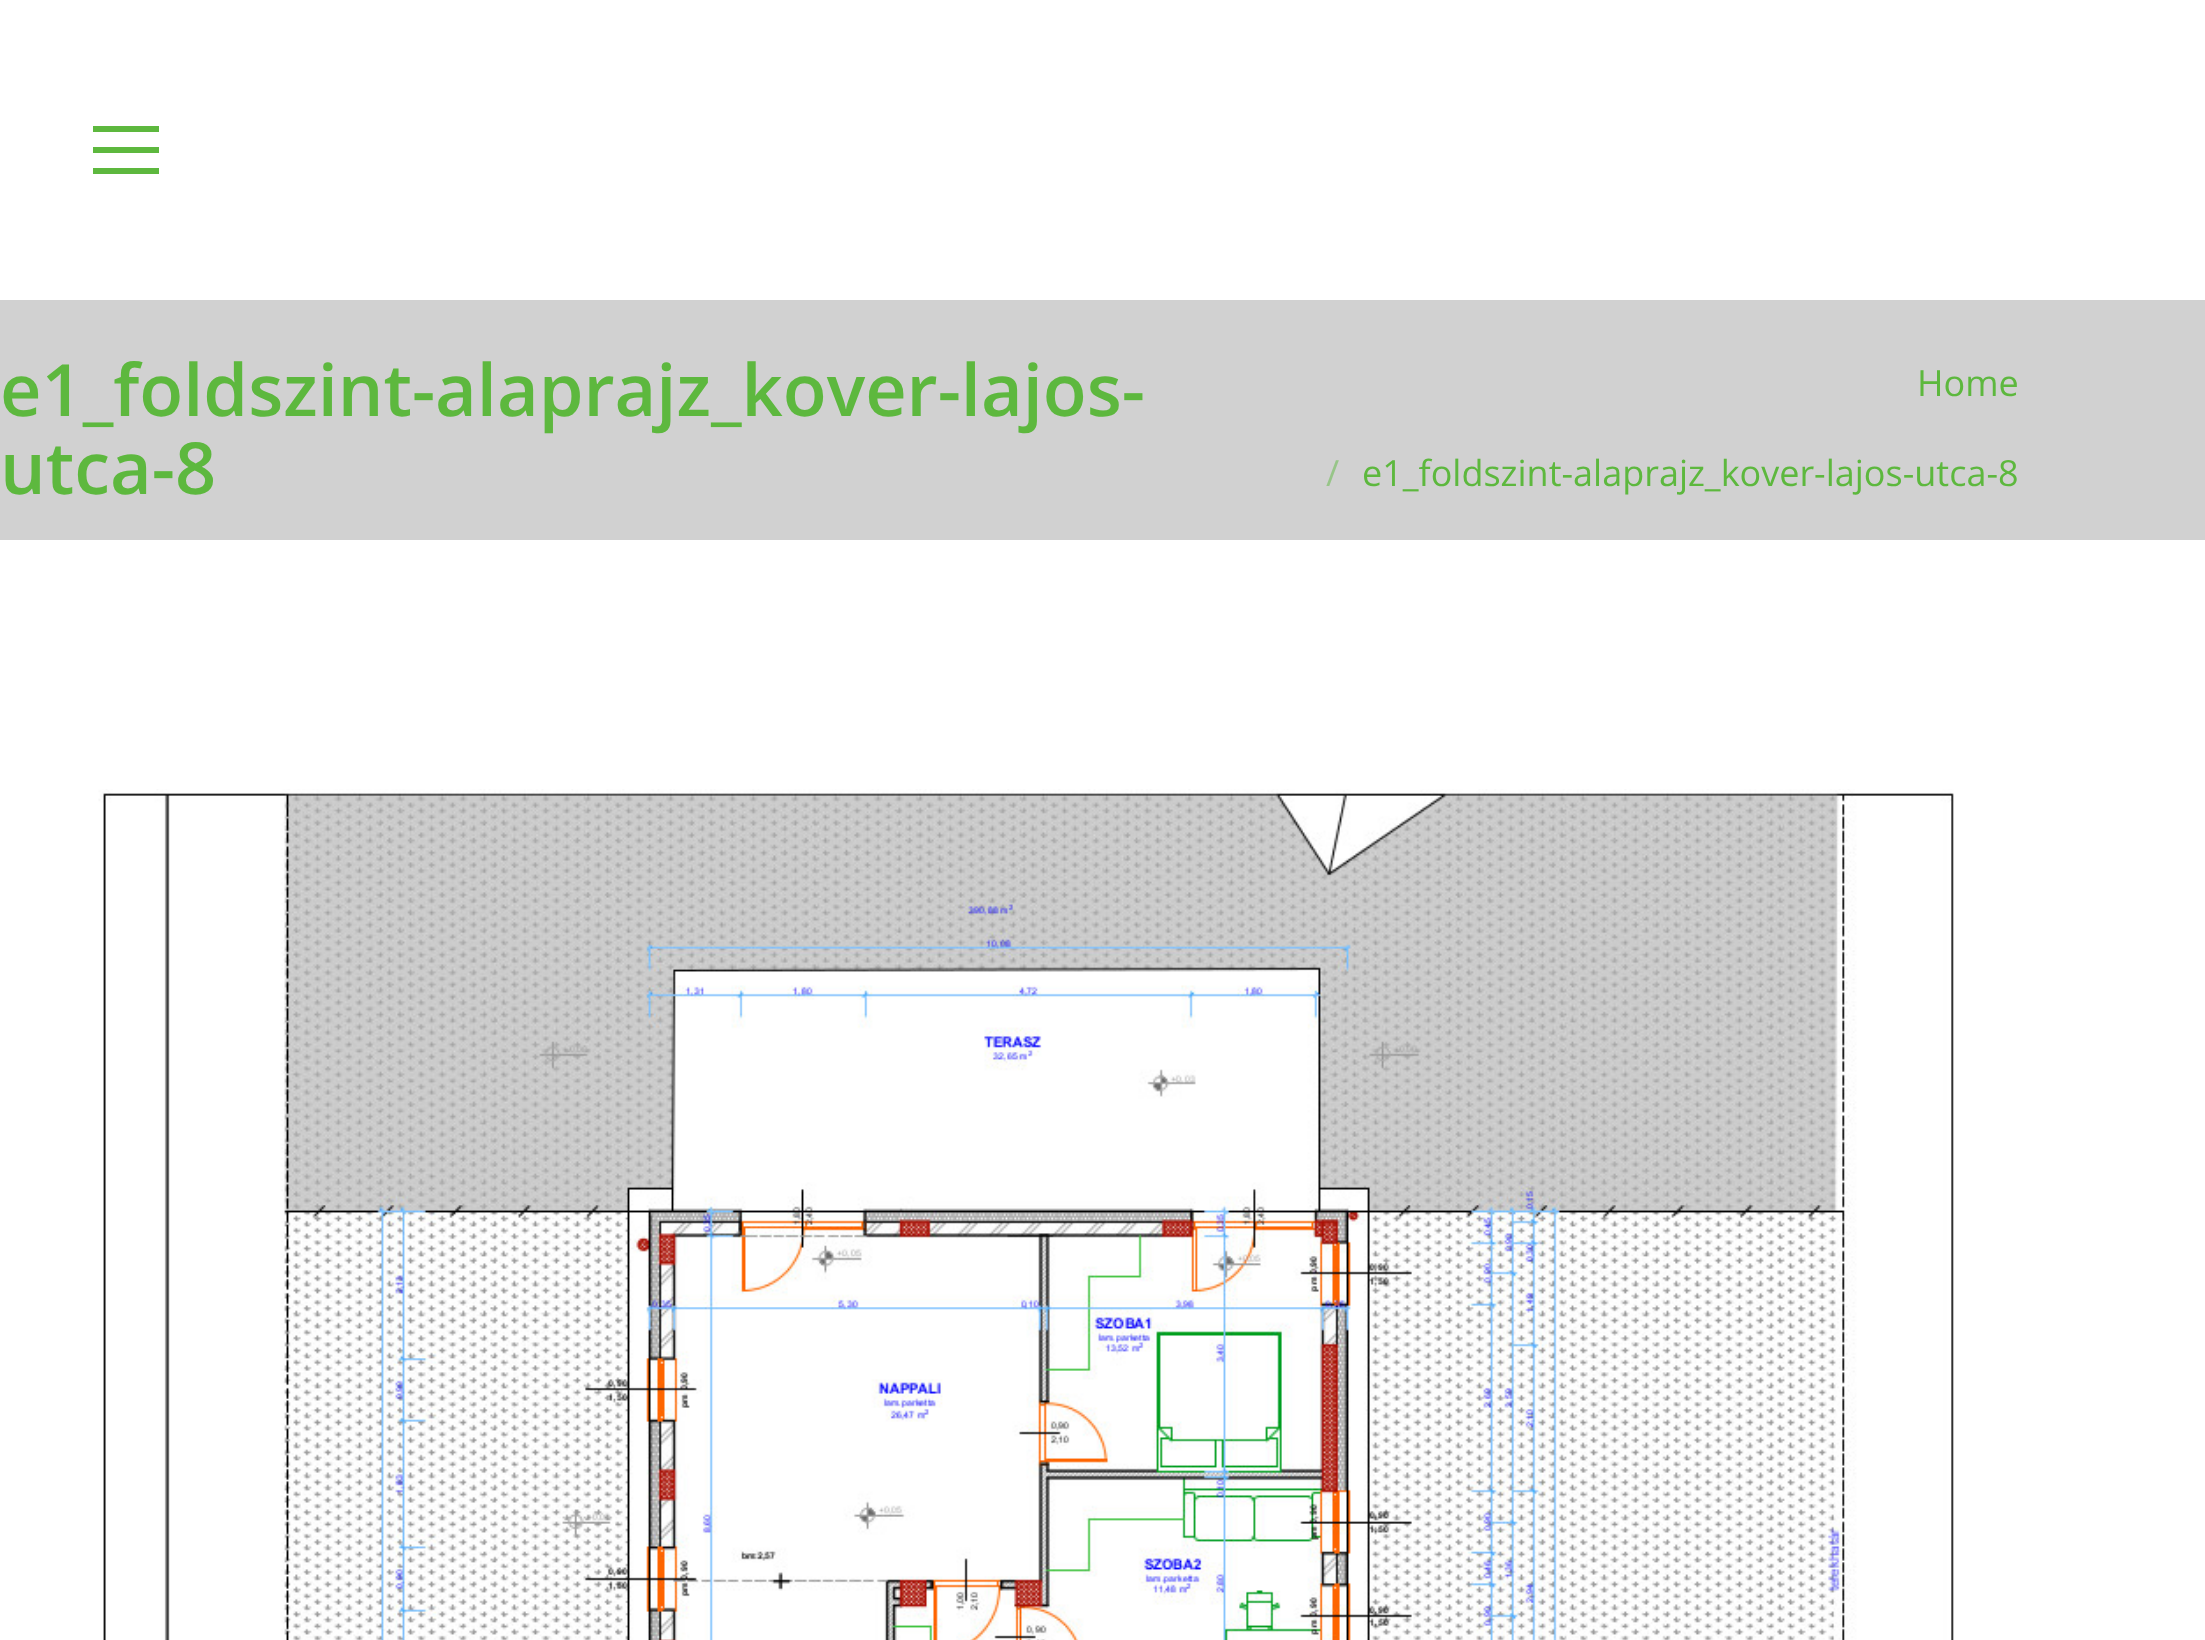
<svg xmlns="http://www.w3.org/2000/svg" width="2205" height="1640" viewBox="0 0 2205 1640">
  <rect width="100%" height="100%" fill="rgb(255,255,255)"/>
  <rect x="93" y="126" width="66" height="6" fill="rgb(93,184,62)"/>
  <rect x="93" y="147" width="66" height="6" fill="rgb(93,184,62)"/>
  <rect x="93" y="168" width="66" height="6" fill="rgb(93,184,62)"/>
  <rect x="0" y="300" width="2205" height="240" fill="rgb(209,209,209)"/>
  <g font-family="Open Sans" font-size="72" font-weight="600" fill="rgb(93,184,62)">
    <text>
      <tspan x="0" y="416">e1_foldszint-alaprajz_kover-lajos-</tspan>
      <tspan x="0" y="494">utca-8</tspan>
    </text>
  </g>
  <text x="1917" y="396" font-family="Open Sans" font-size="36" fill="rgb(93,184,62)">Home</text>
  <text x="1326" y="486" font-family="Open Sans" font-size="36" fill="rgb(151,197,136)">/</text>
  <text x="1362" y="486" font-family="Open Sans" font-size="36" fill="rgb(93,184,62)">e1_foldszint-alaprajz_kover-lajos-utca-8</text>
  <image x="98" y="789" width="1856" height="851" href="pic1.png"/>
</svg>
